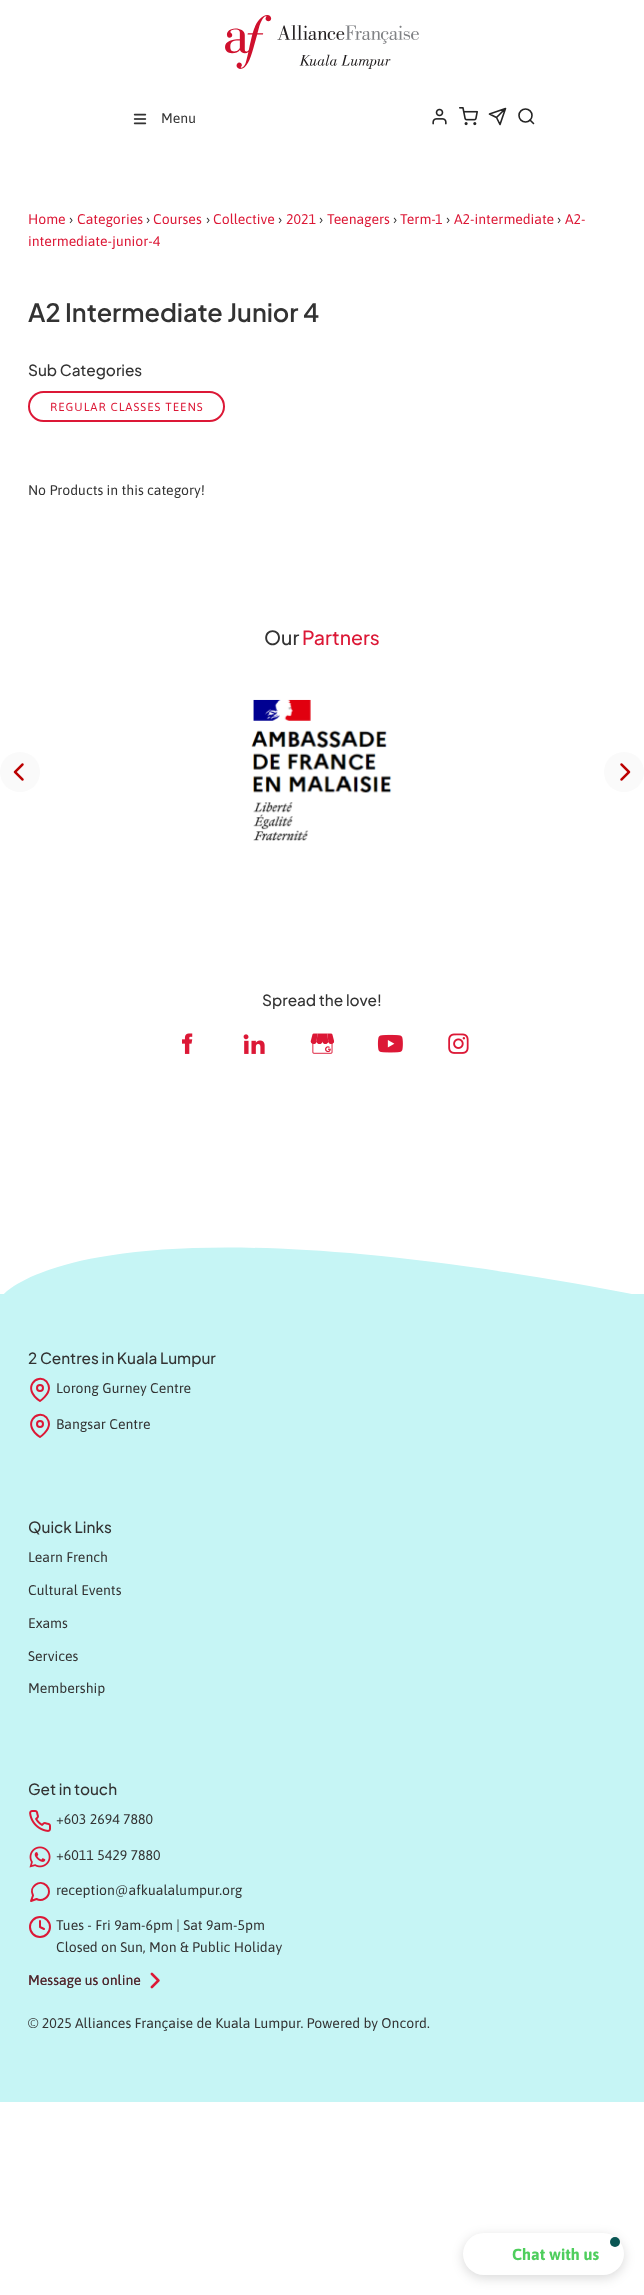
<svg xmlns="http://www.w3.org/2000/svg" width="644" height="2295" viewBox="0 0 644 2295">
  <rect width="100%" height="100%" fill="rgb(255,255,255)"/>
  <image x="225" y="15" width="194" height="54" href="pic1.png"/>
  <image x="133" y="113" width="14" height="12" href="pic2.png"/>
  <text x="161" y="123" font-family="Asap" font-size="14" fill="rgb(51,51,51)">Menu</text>
  <image x="432" y="108" width="15" height="17" href="pic3.png"/>
  <image x="459" y="107" width="19" height="19" href="pic4.png"/>
  <path d="M505.5 108.5L496.5 117.5M505.5 108.5L500 124.5L496.5 117.5L489.5 114Z" fill="none" stroke="rgb(36,36,36)" stroke-width="1.6" stroke-linecap="round" stroke-linejoin="round"/>
  <circle cx="525.5" cy="115.5" r="6.5" fill="none" stroke="rgb(36,36,36)" stroke-width="1.6"/>
  <path d="M533.5 123.5L530 120" fill="none" stroke="rgb(36,36,36)" stroke-width="1.6" stroke-linecap="round" stroke-linejoin="round"/>
  <text x="28" y="224" font-family="Asap" font-size="14" fill="rgb(220,24,54)">Home</text>
  <text x="69" y="224" font-family="Asap" font-size="14" fill="rgb(51,51,51)">›</text>
  <text x="77" y="224" font-family="Asap" font-size="14" fill="rgb(220,24,54)">Categories</text>
  <text x="146" y="224" font-family="Asap" font-size="14" fill="rgb(51,51,51)">›</text>
  <text x="153" y="224" font-family="Asap" font-size="14" fill="rgb(220,24,54)">Courses</text>
  <text x="206" y="224" font-family="Asap" font-size="14" fill="rgb(51,51,51)">›</text>
  <text x="213" y="224" font-family="Asap" font-size="14" fill="rgb(220,24,54)">Collective</text>
  <text x="278" y="224" font-family="Asap" font-size="14" fill="rgb(51,51,51)">›</text>
  <text x="286" y="224" font-family="Asap" font-size="14" fill="rgb(220,24,54)">2021</text>
  <text x="319" y="224" font-family="Asap" font-size="14" fill="rgb(51,51,51)">›</text>
  <text x="327" y="224" font-family="Asap" font-size="14" fill="rgb(220,24,54)">Teenagers</text>
  <text x="393" y="224" font-family="Asap" font-size="14" fill="rgb(51,51,51)">›</text>
  <text x="400" y="224" font-family="Asap" font-size="14" fill="rgb(220,24,54)">Term-1</text>
  <text x="446" y="224" font-family="Asap" font-size="14" fill="rgb(51,51,51)">›</text>
  <text x="454" y="224" font-family="Asap" font-size="14" fill="rgb(220,24,54)">A2-intermediate</text>
  <text x="557" y="224" font-family="Asap" font-size="14" fill="rgb(51,51,51)">›</text>
  <g font-family="Asap" font-size="14" fill="rgb(220,24,54)">
    <text x="565" y="224">A2-</text>
    <text x="28" y="246">intermediate-junior-4</text>
  </g>
  <text x="28" y="322" font-family="Plus Jakarta Sans" font-size="25.25" font-weight="600" fill="rgb(51,51,51)">A2 Intermediate Junior 4</text>
  <text x="28" y="376" font-family="Plus Jakarta Sans" font-size="15.4" font-weight="500" fill="rgb(51,51,51)">Sub Categories</text>
  <rect x="29" y="392" width="195" height="29" rx="14.5" fill="none" stroke="rgb(220,24,54)" stroke-width="2"/>
  <text x="50" y="411" font-family="Asap" font-size="11.7" letter-spacing="1" fill="rgb(220,24,54)">REGULAR CLASSES TEENS</text>
  <text x="28" y="495" font-family="Asap" font-size="14" fill="rgb(51,51,51)">No Products in this category!</text>
  <text x="264" y="645" font-family="Plus Jakarta Sans" font-size="19.5" font-weight="500" fill="rgb(51,51,51)">Our</text>
  <text x="302" y="645" font-family="Plus Jakarta Sans" font-size="19.5" font-weight="500" fill="rgb(220,24,54)">Partners</text>
  <image x="251" y="699" width="141" height="142" href="pic5.png"/>
  <circle cx="20" cy="772" r="20" fill="rgb(250,250,250)"/>
  <image x="13" y="763" width="11" height="18" href="pic6.png"/>
  <circle cx="624" cy="772" r="20" fill="rgb(250,250,250)"/>
  <image x="620" y="763" width="11" height="18" href="pic7.png"/>
  <text x="262" y="1006" font-family="Plus Jakarta Sans" font-size="15.4" font-weight="500" fill="rgb(51,51,51)">Spread the love!</text>
  <image x="182" y="1033" width="11" height="21" href="pic8.png"/>
  <image x="243" y="1034" width="22" height="20" href="pic9.png"/>
  <image x="310" y="1033" width="25" height="21" href="pic10.png"/>
  <image x="377" y="1034" width="26" height="19" href="pic11.png"/>
  <image x="448" y="1033" width="21" height="21" href="pic12.png"/>
  <path d="M215 1296H642C82 1187 2 1296 2 1296" fill="rgb(198,245,245)"/>
  <rect x="0" y="1294" width="644" height="808" fill="rgb(198,245,245)"/>
  <text x="28" y="1364" font-family="Plus Jakarta Sans" font-size="15.4" font-weight="500" fill="rgb(51,51,51)">2 Centres in Kuala Lumpur</text>
  <path d="M49 1388C49 1395 40 1401 40 1401C21 1388.5 37 1372.5 46.5 1381.5C48 1383.5 49 1385.5 49 1388Z" fill="none" stroke="rgb(220,24,54)" stroke-width="2" stroke-linecap="round" stroke-linejoin="round"/>
  <circle cx="40" cy="1388" r="3" fill="none" stroke="rgb(220,24,54)" stroke-width="2"/>
  <text x="56" y="1393" font-family="Asap" font-size="14" fill="rgb(51,51,51)">Lorong Gurney Centre</text>
  <path d="M49 1424C49 1431 40 1437 40 1437C21 1424.5 37 1408.5 46.5 1417.5C48 1419.5 49 1421.5 49 1424Z" fill="none" stroke="rgb(220,24,54)" stroke-width="2" stroke-linecap="round" stroke-linejoin="round"/>
  <circle cx="40" cy="1424" r="3" fill="none" stroke="rgb(220,24,54)" stroke-width="2"/>
  <text x="56" y="1429" font-family="Asap" font-size="14" fill="rgb(51,51,51)">Bangsar Centre</text>
  <text x="28" y="1533" font-family="Plus Jakarta Sans" font-size="15.4" font-weight="500" fill="rgb(51,51,51)">Quick Links</text>
  <g font-family="Asap" font-size="14" fill="rgb(51,51,51)">
    <text x="28" y="1562">Learn French</text>
    <text x="28" y="1595">Cultural Events</text>
    <text x="28" y="1628">Exams</text>
    <text x="28" y="1661">Services</text>
    <text x="28" y="1693">Membership</text>
  </g>
  <text x="28" y="1795" font-family="Plus Jakarta Sans" font-size="15.4" font-weight="500" fill="rgb(51,51,51)">Get in touch</text>
  <image x="29" y="1810" width="22" height="22" href="pic13.png"/>
  <text x="56" y="1824" font-family="Asap" font-size="14" fill="rgb(51,51,51)">+603 2694 7880</text>
  <image x="29" y="1846" width="22" height="22" href="pic14.png"/>
  <text x="56" y="1860" font-family="Asap" font-size="14" fill="rgb(51,51,51)">+6011 5429 7880</text>
  <path d="M49 1891.5C49 1897.5 42 1902 36.5 1899L31 1901L33 1895.5C28.5 1887 39.5 1878.5 46.5 1885.5C48 1887 49 1889 49 1891.5Z" fill="none" stroke="rgb(220,24,54)" stroke-width="2" stroke-linecap="round" stroke-linejoin="round"/>
  <text x="56" y="1895" font-family="Asap" font-size="14" fill="rgb(51,51,51)">reception@afkualalumpur.org</text>
  <circle cx="40" cy="1927" r="10" fill="none" stroke="rgb(220,24,54)" stroke-width="2"/>
  <path d="M40 1921V1927L44 1929" fill="none" stroke="rgb(220,24,54)" stroke-width="2" stroke-linecap="round" stroke-linejoin="round"/>
  <g font-family="Asap" font-size="14" fill="rgb(51,51,51)">
    <text>
      <tspan x="56" y="1930">Tues - Fri 9am-6pm | Sat 9am-5pm</tspan>
      <tspan x="56" y="1952">Closed on Sun, Mon &amp; Public Holiday</tspan>
    </text>
  </g>
  <text x="28" y="1985" font-family="Asap" font-size="14" fill="rgb(220,24,54)">Message us online</text>
  <image x="150" y="1972" width="10" height="17" href="pic15.png"/>
  <g font-family="Asap" font-size="14" fill="rgb(51,51,51)">
    <text x="28" y="1985">Message us online</text>
    <text x="28" y="2028">© 2025 Alliances Française de Kuala Lumpur. Powered by Oncord.</text>
  </g>
  <rect x="463" y="2236" width="161" height="42" rx="21" fill="rgba(0,0,0,0.15)" filter="blur(6px)"/>
  <rect x="463" y="2233" width="161" height="42" rx="21" fill="rgb(255,255,255)"/>
  <circle cx="615" cy="2242" r="5" fill="rgb(10,86,84)"/>
  <text x="512" y="2260" font-family="Asap" font-size="16" font-weight="bold" fill="rgb(79,206,93)">Chat with us</text>
</svg>
